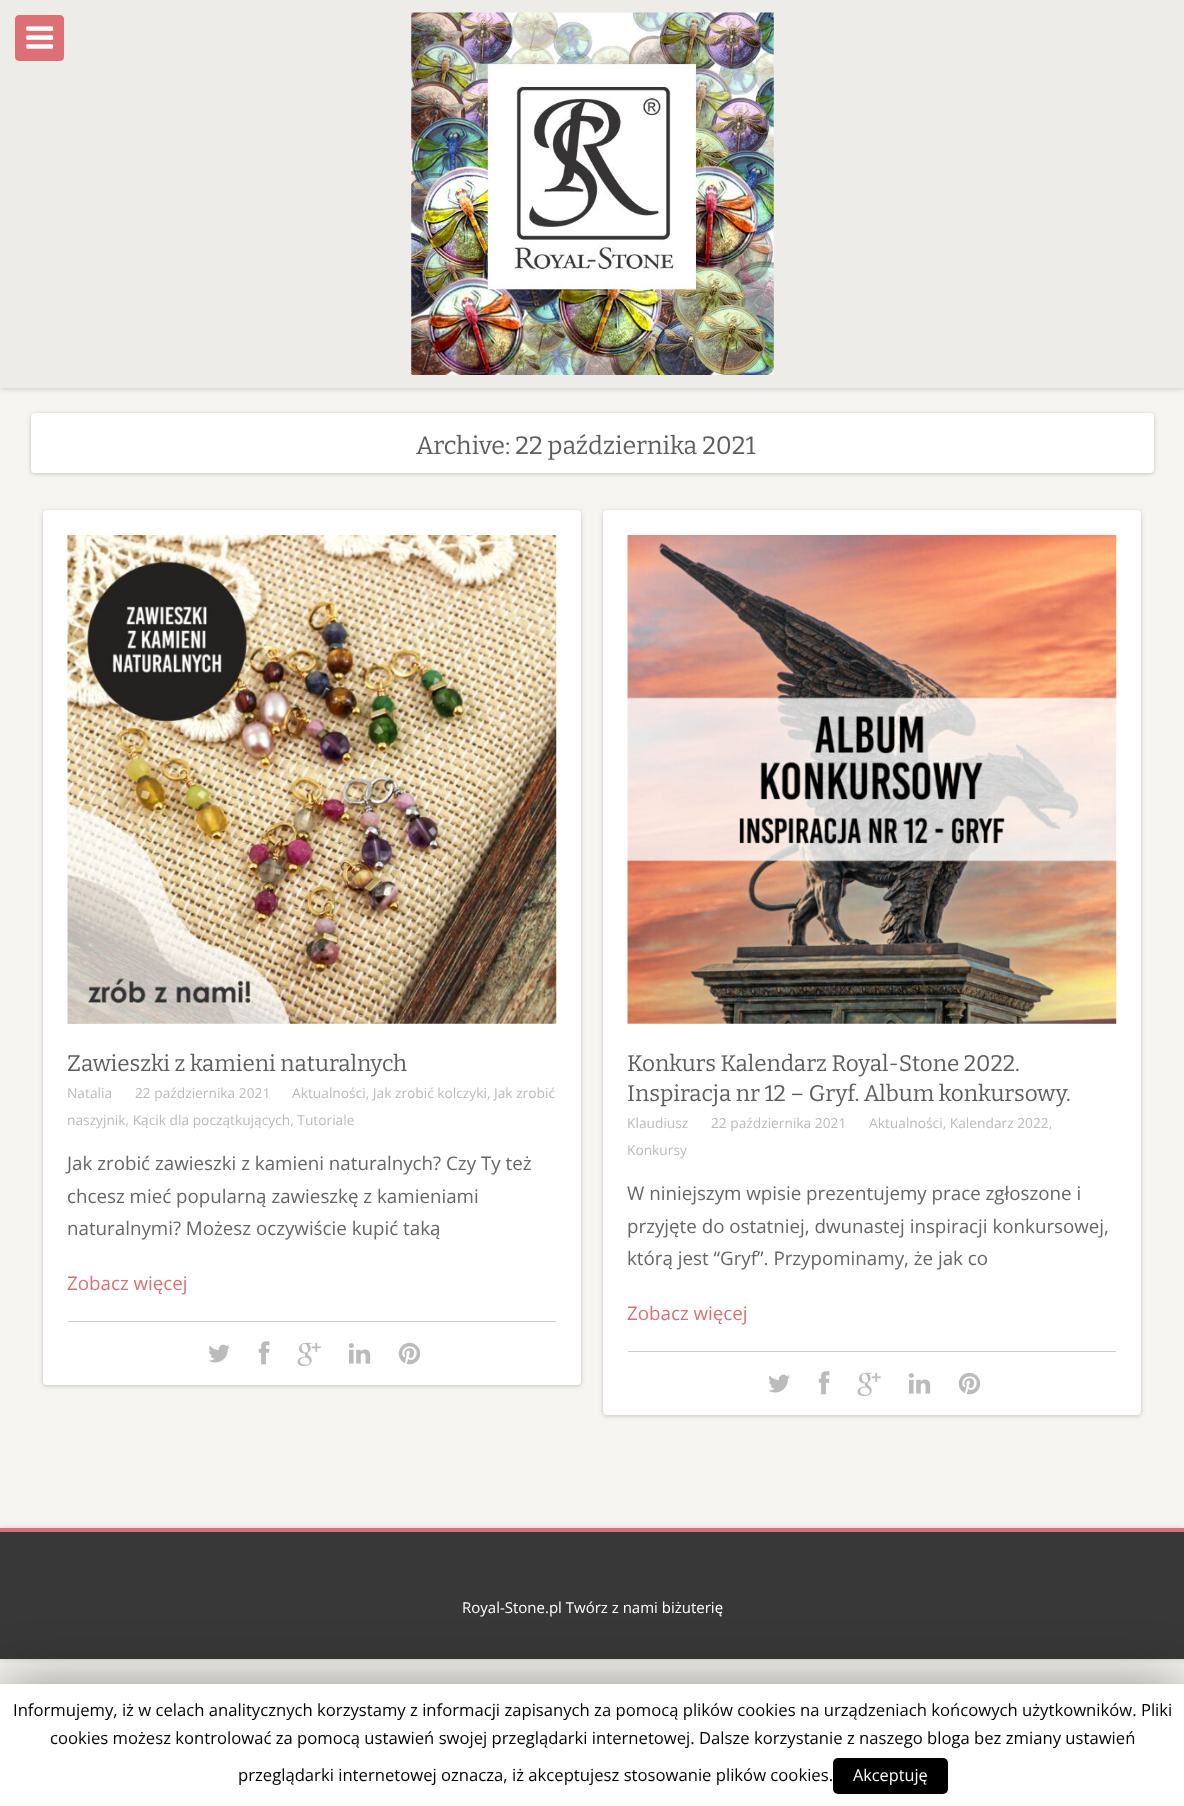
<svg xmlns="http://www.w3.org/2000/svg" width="1184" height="1806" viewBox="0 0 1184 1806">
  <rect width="100%" height="100%" fill="rgb(246,245,241)"/>
  <rect x="0" y="0" width="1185" height="388" fill="rgba(0,0,0,0.2)" filter="blur(3px)"/>
  <rect x="0" y="0" width="1184" height="388" fill="rgb(237,236,232)"/>
  <rect x="15.5" y="15.5" width="48" height="45" rx="3.5" fill="rgb(220,112,117)" stroke="rgb(220,112,117)"/>
  <image x="26" y="26" width="28" height="23" href="pic1.png"/>
  <image x="411" y="12" width="363" height="363" href="pic2.png"/>
  <rect x="31" y="414" width="1123" height="60" rx="4" fill="rgba(0,0,0,0.2)" filter="blur(2px)"/>
  <rect x="31" y="413" width="1123" height="60" rx="4" fill="rgb(255,255,255)"/>
  <text x="416" y="454" font-family="Bitter" font-size="25" fill="rgb(95,94,92)">Archive: 22 października 2021</text>
  <rect x="43" y="511" width="538" height="875" rx="4" fill="rgba(0,0,0,0.2)" filter="blur(2px)"/>
  <rect x="43" y="510" width="538" height="875" rx="4" fill="rgb(255,255,255)"/>
  <image x="67" y="535" width="490" height="489" href="pic3.png"/>
  <text x="67" y="1071" font-family="Bitter" font-size="22.5" fill="rgb(95,94,92)">Zawieszki z kamieni naturalnych</text>
  <g font-family="Open Sans" font-size="13.75" fill="rgb(187,187,187)">
    <text x="67" y="1098">Natalia</text>
    <text x="135" y="1098">22 października 2021</text>
    <text x="292" y="1098">Aktualności, Jak zrobić kolczyki, Jak zrobić</text>
    <text x="67" y="1125">naszyjnik, Kącik dla początkujących, Tutoriale</text>
  </g>
  <g font-family="Open Sans" font-size="18.75" fill="rgb(102,102,102)">
    <text>
      <tspan x="67" y="1170">Jak zrobić zawieszki z kamieni naturalnych? Czy Ty też</tspan>
      <tspan x="67" y="1203">chcesz mieć popularną zawieszkę z kamieniami</tspan>
      <tspan x="67" y="1235">naturalnymi? Możesz oczywiście kupić taką</tspan>
    </text>
  </g>
  <text x="67" y="1290" font-family="Open Sans" font-size="18.75" fill="rgb(220,112,117)">Zobacz więcej</text>
  <rect x="68" y="1321" width="488" height="1" fill="rgb(204,204,204)"/>
  <image x="208" y="1344" width="22" height="19" href="pic4.png"/>
  <image x="258" y="1341" width="12" height="24" href="pic5.png"/>
  <image x="297" y="1342" width="24" height="24" href="pic6.png"/>
  <image x="348" y="1343" width="23" height="21" href="pic7.png"/>
  <image x="398" y="1342" width="23" height="23" href="pic8.png"/>
  <rect x="603" y="511" width="538" height="905" rx="4" fill="rgba(0,0,0,0.2)" filter="blur(2px)"/>
  <rect x="603" y="510" width="538" height="905" rx="4" fill="rgb(255,255,255)"/>
  <image x="627" y="535" width="490" height="489" href="pic9.png"/>
  <g font-family="Bitter" font-size="22.5" fill="rgb(95,94,92)">
    <text>
      <tspan x="627" y="1071">Konkurs Kalendarz Royal-Stone 2022.</tspan>
      <tspan x="627" y="1101">Inspiracja nr 12 – Gryf. Album konkursowy.</tspan>
    </text>
  </g>
  <g font-family="Open Sans" font-size="13.75" fill="rgb(187,187,187)">
    <text x="627" y="1128">Klaudiusz</text>
    <text x="711" y="1128">22 października 2021</text>
    <text x="869" y="1128">Aktualności, Kalendarz 2022,</text>
    <text x="627" y="1155">Konkursy</text>
  </g>
  <g font-family="Open Sans" font-size="18.75" fill="rgb(102,102,102)">
    <text>
      <tspan x="627" y="1200">W niniejszym wpisie prezentujemy prace zgłoszone i</tspan>
      <tspan x="627" y="1233">przyjęte do ostatniej, dwunastej inspiracji konkursowej,</tspan>
      <tspan x="627" y="1265">którą jest “Gryf”. Przypominamy, że jak co</tspan>
    </text>
  </g>
  <text x="627" y="1320" font-family="Open Sans" font-size="18.75" fill="rgb(220,112,117)">Zobacz więcej</text>
  <rect x="628" y="1351" width="488" height="1" fill="rgb(204,204,204)"/>
  <image x="768" y="1374" width="22" height="19" href="pic4.png"/>
  <image x="818" y="1371" width="12" height="24" href="pic5.png"/>
  <image x="857" y="1372" width="24" height="24" href="pic6.png"/>
  <image x="908" y="1373" width="23" height="21" href="pic7.png"/>
  <image x="958" y="1372" width="23" height="23" href="pic8.png"/>
  <rect x="0" y="1528" width="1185" height="131" fill="rgba(0,0,0,0.15)" filter="blur(3px)"/>
  <rect x="0" y="1532" width="1184" height="127" fill="rgb(56,56,56)"/>
  <rect x="0" y="1528" width="1184" height="4" fill="rgb(220,112,117)"/>
  <text x="462" y="1613" font-family="Open Sans" font-size="15" fill="rgb(255,255,255)">Royal-Stone.pl Twórz z nami biżuterię</text>
  <rect x="0" y="1690" width="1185" height="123" fill="rgba(0,0,0,0.5)" filter="blur(31px)"/>
  <rect x="0" y="1684" width="1184" height="122" fill="rgb(255,255,255)"/>
  <g font-family="Open Sans" font-size="16.67" fill="rgb(0,0,0)">
    <text x="13" y="1716">Informujemy, iż w celach analitycznych korzystamy z informacji zapisanych za pomocą plików cookies na urządzeniach końcowych użytkowników. Pliki</text>
    <text x="50" y="1744">cookies możesz kontrolować za pomocą ustawień swojej przeglądarki internetowej. Dalsze korzystanie z naszego bloga bez zmiany ustawień</text>
    <text x="238" y="1781">przeglądarki internetowej oznacza, iż akceptujesz stosowanie plików cookies.</text>
  </g>
  <rect x="833" y="1758" width="115" height="36" rx="5" fill="rgb(0,0,0)"/>
  <text x="853" y="1781" font-family="Open Sans" font-size="16.25" fill="rgb(255,255,255)">Akceptuję</text>
</svg>
